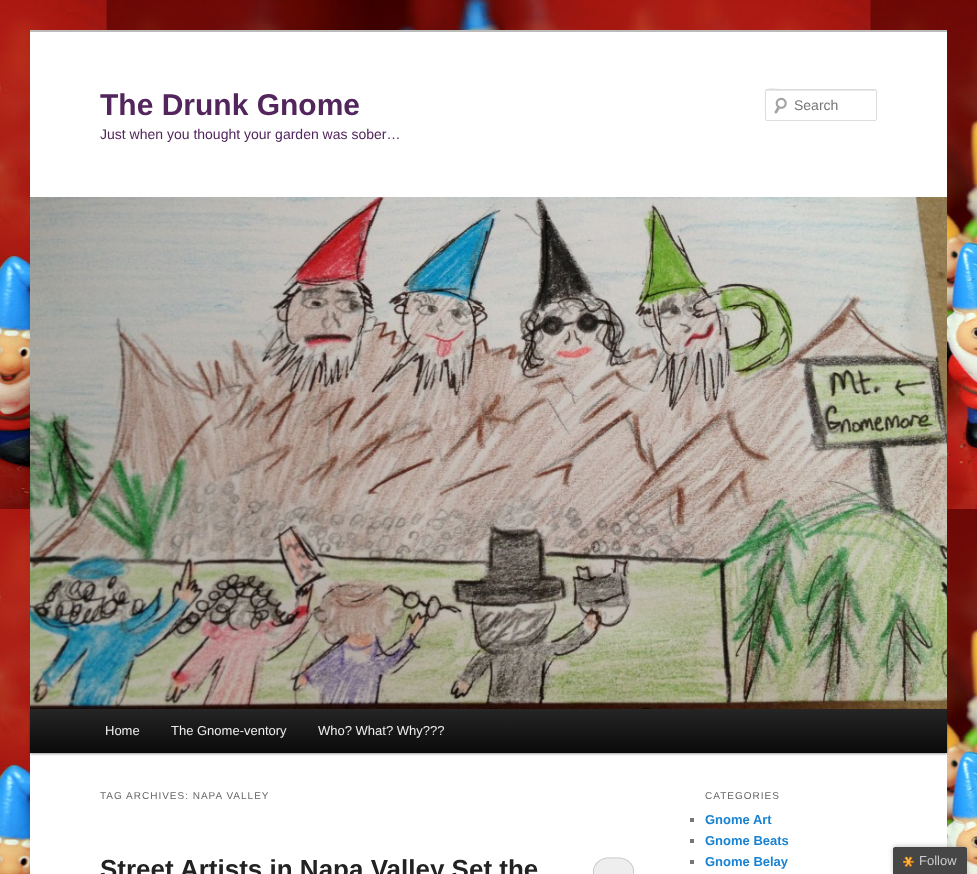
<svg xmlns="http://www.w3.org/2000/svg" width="977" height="874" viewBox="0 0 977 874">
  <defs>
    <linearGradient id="g1" gradientUnits="userSpaceOnUse" x1="489" y1="709" x2="489" y2="753"><stop offset="0" stop-color="rgb(37,37,37)"/><stop offset="1" stop-color="rgb(10,10,10)"/></linearGradient>
  </defs>
  <rect width="100%" height="100%" fill="rgb(255,255,255)"/>
  <image x="0" y="0" width="977" height="874" href="pic1.png"/>
  <rect x="30" y="32" width="917" height="842" fill="rgb(255,255,255)"/>
  <rect x="30" y="30" width="917" height="2" fill="rgb(187,187,187)"/>
  <text x="100" y="115" font-family="Liberation Sans" font-size="30" font-weight="bold" fill="rgb(82,37,92)">The Drunk Gnome</text>
  <text x="100" y="139" font-family="Liberation Sans" font-size="14" fill="rgb(82,37,92)">Just when you thought your garden was sober…</text>
  <image x="774" y="97" width="13" height="17" href="pic2.png"/>
  <path d="M767 91H876V92L875 90H785C781 90 766 85 766 92C766 91 766 91 767 91Z" fill="rgb(230,230,230)"/>
  <rect x="765.5" y="89.5" width="111" height="31" rx="1.5" fill="none" stroke="rgb(221,221,221)"/>
  <text x="794" y="110" font-family="Liberation Sans" font-size="14" fill="rgb(117,117,117)">Search</text>
  <rect x="30" y="710" width="917" height="44" fill="rgba(0,0,0,0.4)" filter="blur(1px)"/>
  <image x="30" y="197" width="917" height="512" href="pic3.png"/>
  <rect x="30" y="709" width="917" height="44" fill="url(#g1)"/>
  <g font-family="Liberation Sans" font-size="13" fill="rgb(238,238,238)">
    <text x="105" y="735">Home</text>
    <text x="171" y="735">The Gnome-ventory</text>
    <text x="318" y="735">Who? What? Why???</text>
  </g>
  <text x="100" y="799" font-family="Liberation Sans" font-size="10" letter-spacing="1" fill="rgb(102,102,102)">TAG ARCHIVES: NAPA VALLEY</text>
  <text x="100" y="878" font-family="Liberation Sans" font-size="26" font-weight="bold" fill="rgb(34,34,34)">Street Artists in Napa Valley Set the</text>
  <rect x="593" y="857" width="41" height="17" fill="rgb(238,238,238)"/>
  <image x="592" y="855" width="43" height="19" href="pic4.png"/>
  <text x="705" y="799" font-family="Liberation Sans" font-size="10" letter-spacing="1" fill="rgb(102,102,102)">CATEGORIES</text>
  <rect x="690" y="818" width="4" height="4" fill="rgb(119,119,119)"/>
  <text x="705" y="824" font-family="Liberation Sans" font-size="13" font-weight="bold" fill="rgb(25,130,209)">Gnome Art</text>
  <rect x="690" y="839" width="4" height="4" fill="rgb(119,119,119)"/>
  <text x="705" y="845" font-family="Liberation Sans" font-size="13" font-weight="bold" fill="rgb(25,130,209)">Gnome Beats</text>
  <rect x="690" y="860" width="4" height="4" fill="rgb(119,119,119)"/>
  <text x="705" y="866" font-family="Liberation Sans" font-size="13" font-weight="bold" fill="rgb(25,130,209)">Gnome Belay</text>
  <rect x="893" y="846" width="74" height="28" rx="2" fill="rgba(0,0,0,0.2)" filter="blur(2.5px)"/>
  <path d="M895 847H965C966 847 967 848 967 849V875H893V849C893 848 894 847 895 847Z" fill="rgb(70,70,70)"/>
  <image x="903" y="856" width="11" height="11" href="pic5.png"/>
  <text x="919" y="865" font-family="Liberation Sans" font-size="13" fill="rgb(204,204,204)">Follow</text>
</svg>
